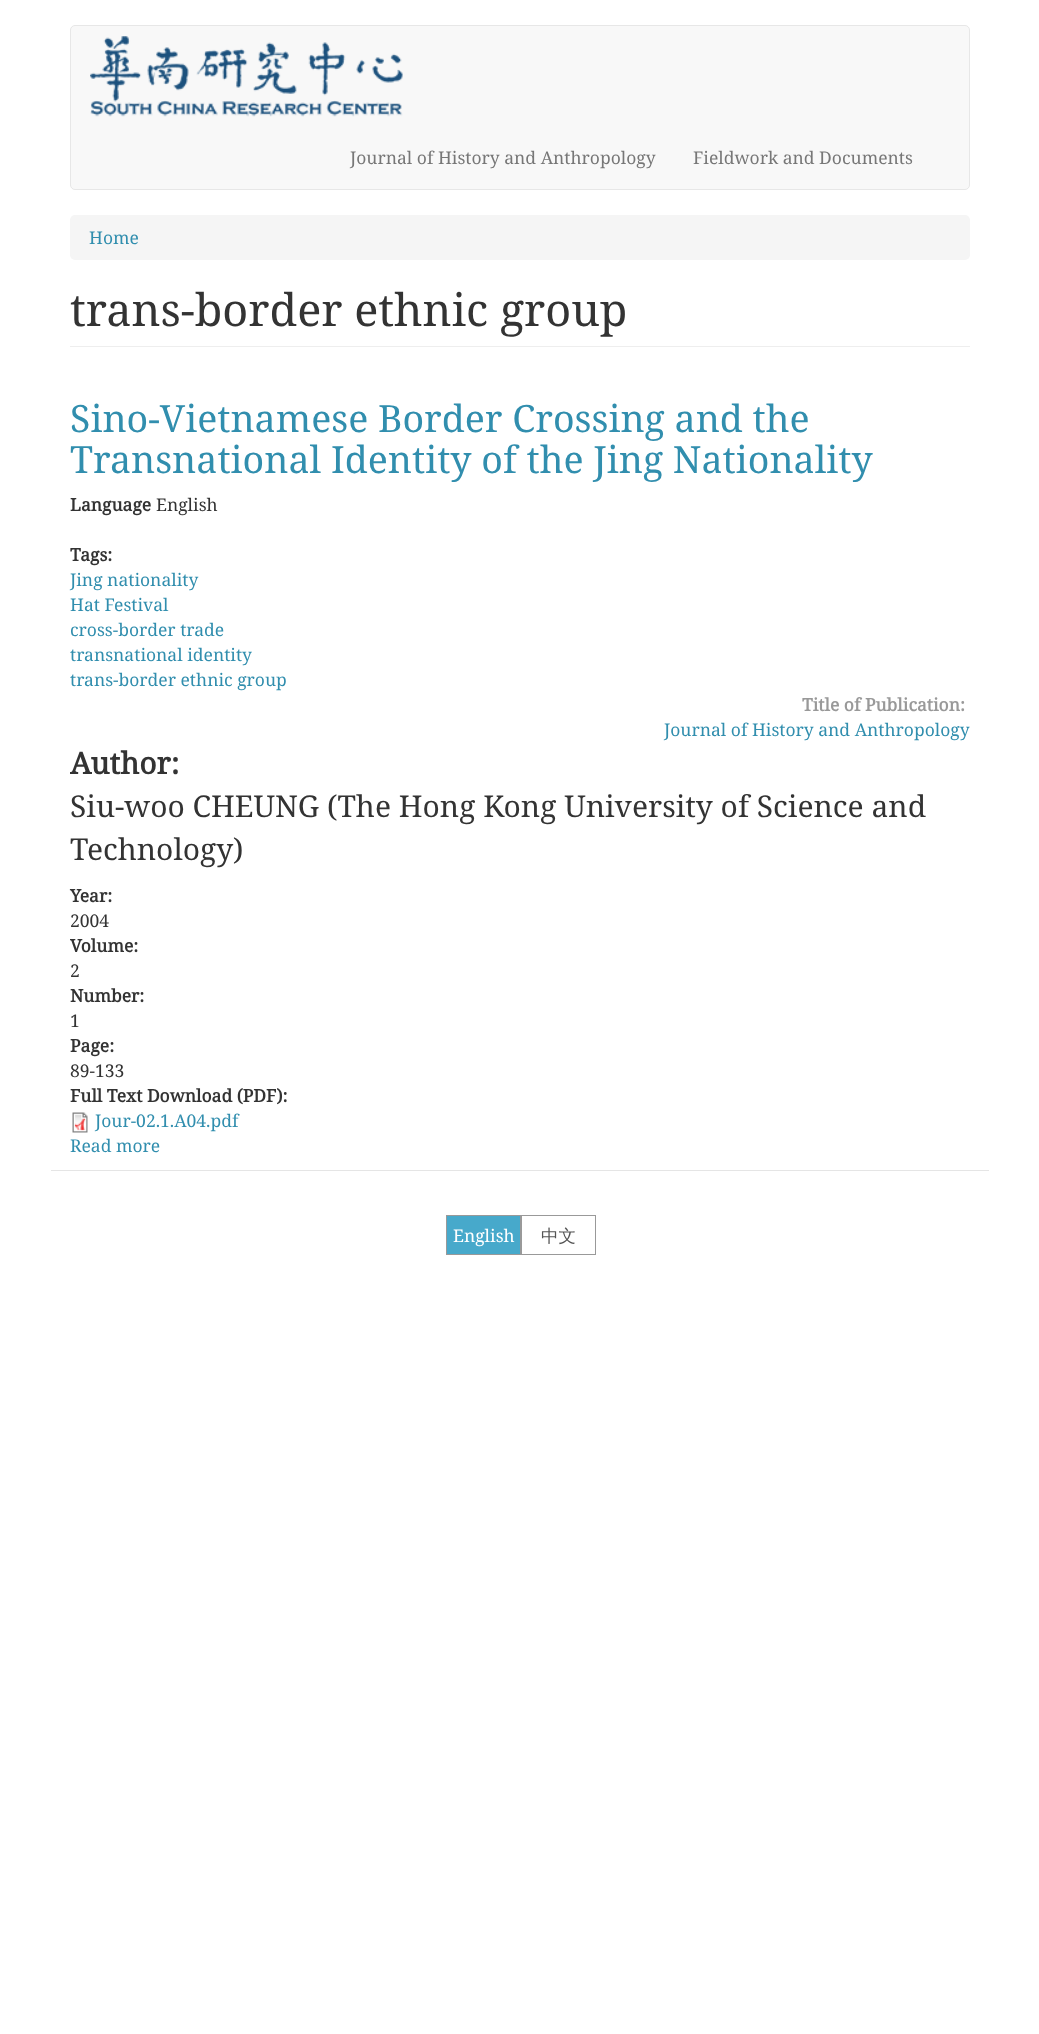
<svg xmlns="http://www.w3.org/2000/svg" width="1039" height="2034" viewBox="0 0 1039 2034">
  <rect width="100%" height="100%" fill="rgb(255,255,255)"/>
  <rect x="70.5" y="25.5" width="899" height="164" rx="4.5" fill="rgb(248,248,248)" stroke="rgb(231,231,231)"/>
  <image x="90" y="36" width="313" height="81" href="pic1.png"/>
  <g font-family="Noto Serif" font-size="17.5" fill="rgb(119,119,119)">
    <text x="350" y="164">Journal of History and Anthropology</text>
    <text x="693" y="164">Fieldwork and Documents</text>
  </g>
  <rect x="70" y="215" width="900" height="45" rx="5" fill="rgb(245,245,245)"/>
  <text x="89" y="244" font-family="Noto Serif" font-size="17.5" fill="rgb(49,142,174)">Home</text>
  <rect x="70" y="346" width="900" height="1" fill="rgb(238,238,238)"/>
  <text x="70" y="326" font-family="Noto Serif" font-size="45" fill="rgb(51,51,51)">trans-border ethnic group</text>
  <g font-family="Noto Serif" font-size="37.5" fill="rgb(49,142,174)">
    <text>
      <tspan x="70" y="432">Sino-Vietnamese Border Crossing and the</tspan>
      <tspan x="70" y="473">Transnational Identity of the Jing Nationality</tspan>
    </text>
  </g>
  <text x="70" y="511" font-family="Noto Serif" font-size="17.5" font-weight="bold" fill="rgb(51,51,51)">Language</text>
  <text x="156" y="511" font-family="Noto Serif" font-size="17.5" fill="rgb(51,51,51)">English</text>
  <text x="70" y="561" font-family="Noto Serif" font-size="17.5" font-weight="bold" fill="rgb(51,51,51)">Tags:</text>
  <g font-family="Noto Serif" font-size="17.5" fill="rgb(49,142,174)">
    <text>
      <tspan x="70" y="586">Jing nationality</tspan>
      <tspan x="70" y="611">Hat Festival</tspan>
      <tspan x="70" y="636">cross-border trade</tspan>
      <tspan x="70" y="661">transnational identity</tspan>
      <tspan x="70" y="686">trans-border ethnic group</tspan>
    </text>
  </g>
  <text x="802" y="711" font-family="Noto Serif" font-size="17.5" font-weight="bold" fill="rgb(153,153,153)">Title of Publication:</text>
  <text x="664" y="736" font-family="Noto Serif" font-size="17.5" fill="rgb(49,142,174)">Journal of History and Anthropology</text>
  <text x="70" y="774" font-family="Noto Serif" font-size="30" font-weight="bold" fill="rgb(51,51,51)">Author:</text>
  <g font-family="Noto Serif" font-size="30" fill="rgb(51,51,51)">
    <text>
      <tspan x="70" y="817">Siu-woo CHEUNG (The Hong Kong University of Science and</tspan>
      <tspan x="70" y="860">Technology)</tspan>
    </text>
  </g>
  <text x="70" y="902" font-family="Noto Serif" font-size="17.5" font-weight="bold" fill="rgb(51,51,51)">Year:</text>
  <text x="70" y="927" font-family="Noto Serif" font-size="17.5" fill="rgb(51,51,51)">2004</text>
  <text x="70" y="952" font-family="Noto Serif" font-size="17.5" font-weight="bold" fill="rgb(51,51,51)">Volume:</text>
  <text x="70" y="977" font-family="Noto Serif" font-size="17.5" fill="rgb(51,51,51)">2</text>
  <text x="70" y="1002" font-family="Noto Serif" font-size="17.5" font-weight="bold" fill="rgb(51,51,51)">Number:</text>
  <text x="70" y="1027" font-family="Noto Serif" font-size="17.5" fill="rgb(51,51,51)">1</text>
  <text x="70" y="1052" font-family="Noto Serif" font-size="17.5" font-weight="bold" fill="rgb(51,51,51)">Page:</text>
  <text x="70" y="1077" font-family="Noto Serif" font-size="17.5" fill="rgb(51,51,51)">89-133</text>
  <text x="70" y="1102" font-family="Noto Serif" font-size="17.5" font-weight="bold" fill="rgb(51,51,51)">Full Text Download (PDF):</text>
  <image x="72" y="1112" width="16" height="21" href="pic2.png"/>
  <g font-family="Noto Serif" font-size="17.5" fill="rgb(49,142,174)">
    <text x="95" y="1127">Jour-02.1.A04.pdf</text>
    <text x="70" y="1152">Read more</text>
  </g>
  <rect x="51" y="1170" width="938" height="1" fill="rgb(229,229,229)"/>
  <rect x="446.5" y="1215.5" width="74" height="39" fill="rgb(71,169,203)" stroke="rgb(153,153,153)"/>
  <text x="453" y="1242" font-family="Noto Serif" font-size="17.5" fill="rgb(255,255,255)">English</text>
  <rect x="521.5" y="1215.5" width="74" height="39" fill="none" stroke="rgb(153,153,153)"/>
  <text x="541" y="1242" font-family="WenQuanYi Zen Hei" font-size="17.5" font-weight="500" fill="rgb(85,85,85)">中文</text>
</svg>
